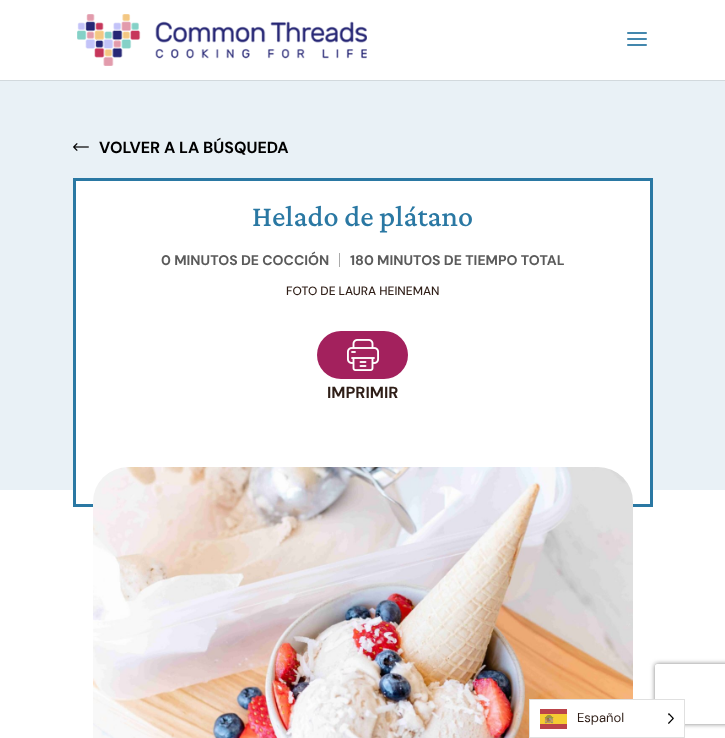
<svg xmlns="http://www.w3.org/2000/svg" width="725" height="738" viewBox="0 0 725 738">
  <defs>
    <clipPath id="clip1"><path d="M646 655H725V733H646ZM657 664H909C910 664 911 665 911 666V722C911 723 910 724 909 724H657C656 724 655 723 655 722V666C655 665 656 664 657 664Z" clip-rule="evenodd"/></clipPath>
  </defs>
  <rect width="100%" height="100%" fill="rgb(255,255,255)"/>
  <rect x="0" y="80" width="725" height="1" fill="rgb(210,217,221)"/>
  <image x="77" y="14" width="290" height="52" href="pic1.png"/>
  <image x="627" y="32" width="20" height="14" href="pic2.png"/>
  <rect x="0" y="81" width="725" height="409" fill="rgb(233,241,246)"/>
  <image x="73" y="143" width="16" height="8" href="pic3.png"/>
  <text x="99" y="153" font-family="DM Sans" font-size="16" font-weight="bold" fill="rgb(0,0,0)">VOLVER A LA BÚSQUEDA</text>
  <rect x="76" y="181" width="574" height="309" fill="rgb(255,255,255)"/>
  <rect x="74.5" y="179.5" width="577" height="326" fill="none" stroke="rgb(42,120,163)" stroke-width="3"/>
  <text x="252" y="226" font-family="Crimson Pro" font-size="30" font-weight="500" fill="rgb(42,120,163)">Helado de plátano</text>
  <rect x="339" y="253" width="1" height="14" fill="rgb(170,170,170)"/>
  <g font-family="DM Sans" font-size="14" font-weight="bold" fill="rgb(91,91,91)">
    <text x="161" y="265">0 MINUTOS DE COCCIÓN</text>
    <text x="350" y="265">180 MINUTOS DE TIEMPO TOTAL</text>
  </g>
  <text x="286" y="295" font-family="DM Sans" font-size="12" font-weight="500" fill="rgb(47,30,23)">FOTO DE LAURA HEINEMAN</text>
  <rect x="317" y="331" width="91" height="48" rx="24" fill="rgb(163,33,93)"/>
  <image x="347" y="339" width="32" height="32" href="pic4.png"/>
  <text x="327" y="398" font-family="DM Sans" font-size="16" font-weight="bold" fill="rgb(47,30,23)">IMPRIMIR</text>
  <image x="93" y="467" width="540" height="271" href="pic5.png"/>
  <g clip-path="url(#clip1)">
    <rect x="655" y="664" width="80" height="60" rx="2" fill="rgb(128,128,128)" filter="blur(2.5px)"/>
  </g>
  <rect x="529.5" y="699.5" width="155" height="38" fill="rgb(255,255,255)" stroke="rgb(224,224,224)"/>
  <image x="540" y="709" width="27" height="20" href="pic6.png"/>
  <text x="577" y="722" font-family="DM Sans" font-size="13" fill="rgb(47,30,23)">Español</text>
  <image x="668" y="713" width="6" height="11" href="pic7.png"/>
</svg>
